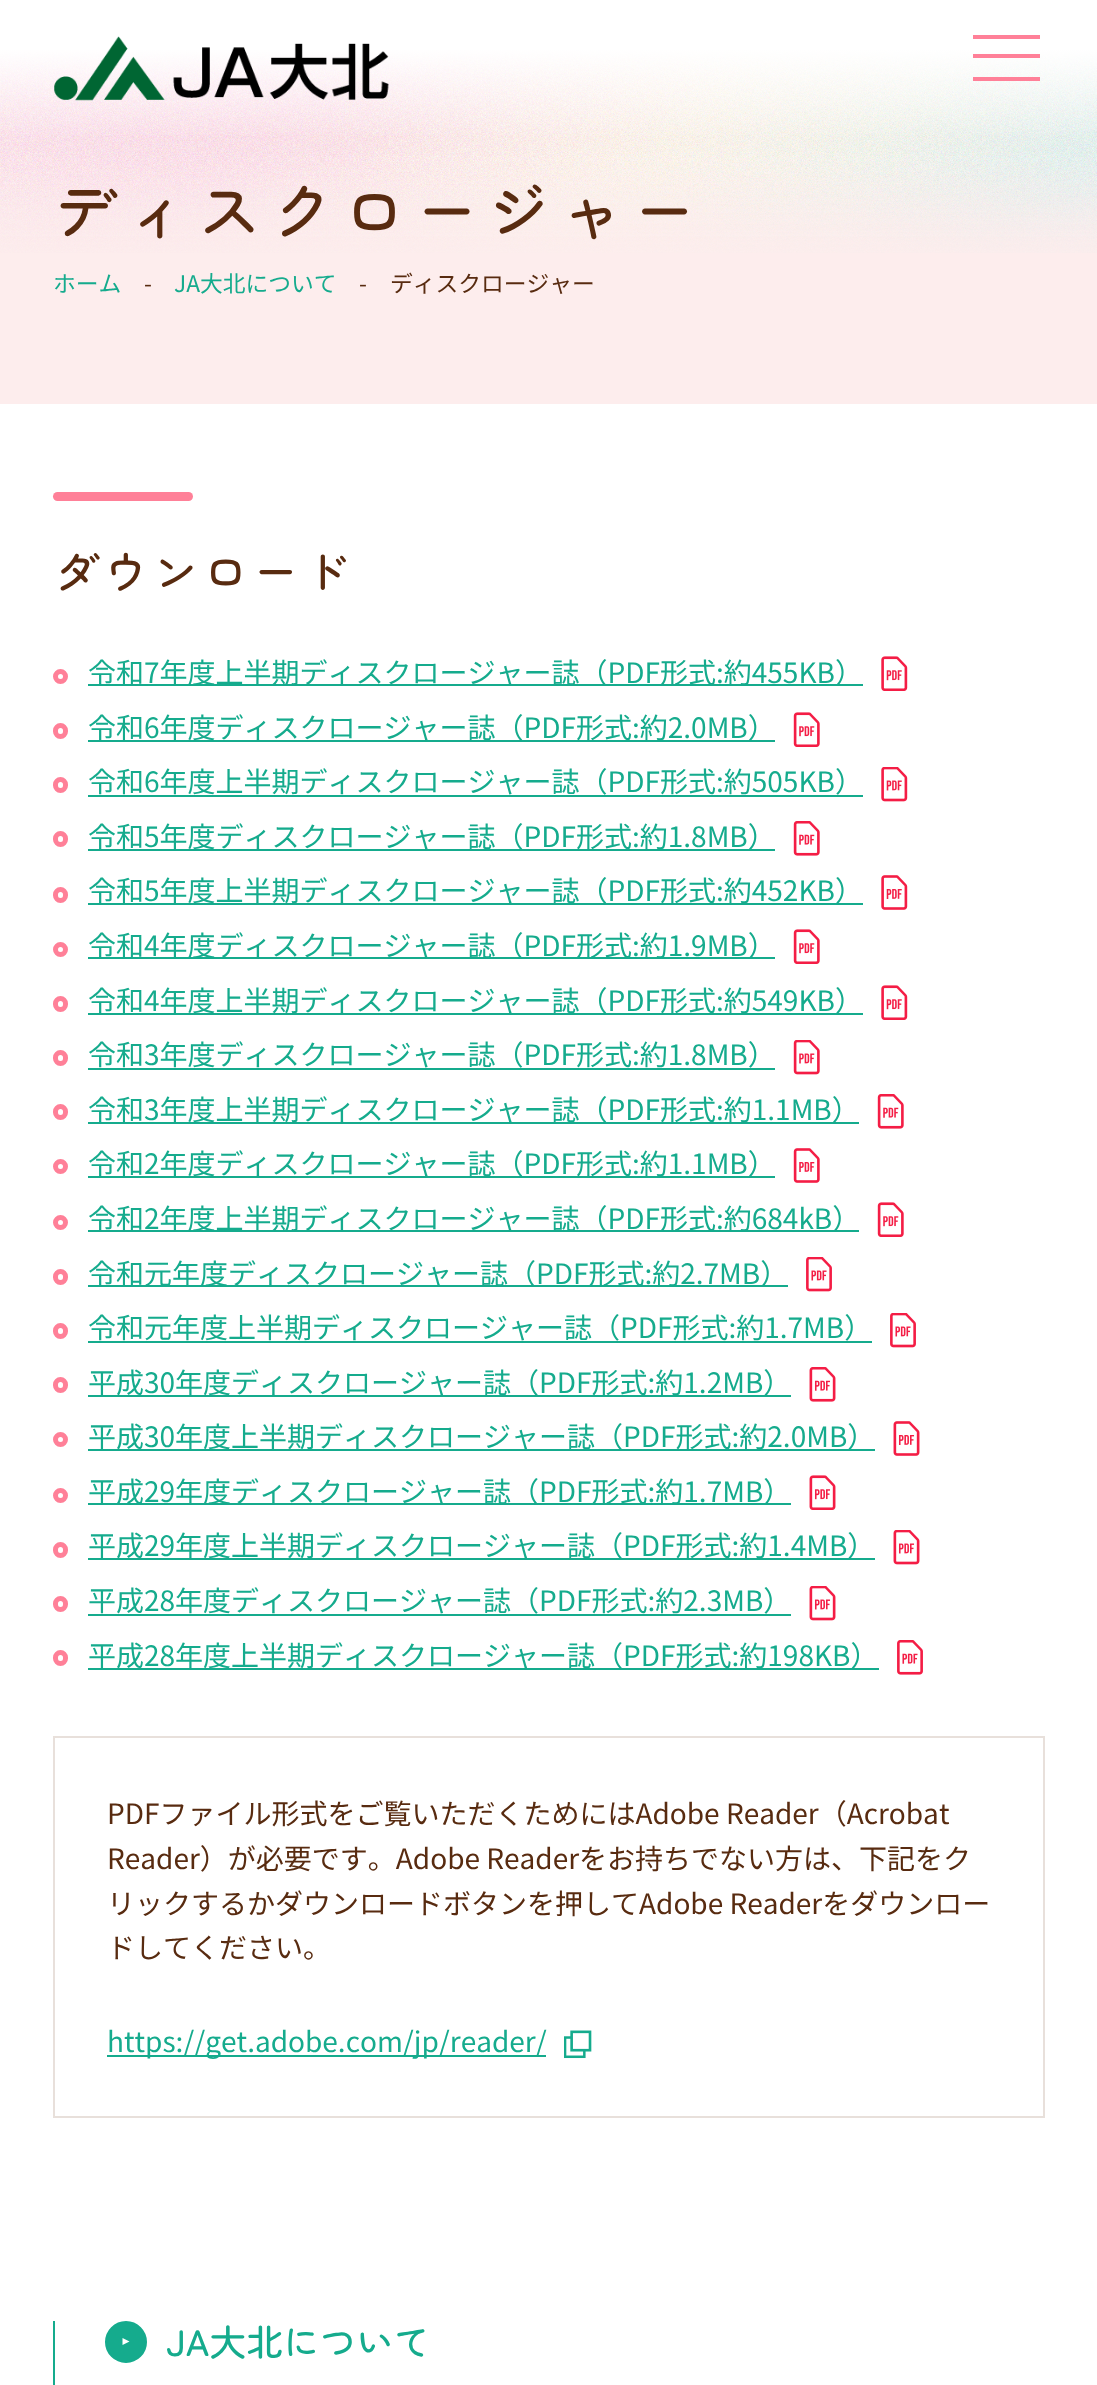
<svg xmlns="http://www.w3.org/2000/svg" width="1097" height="2385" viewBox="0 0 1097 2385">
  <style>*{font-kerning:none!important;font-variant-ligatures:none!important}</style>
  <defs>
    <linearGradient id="g1" gradientUnits="userSpaceOnUse" x1="549" y1="0" x2="549" y2="140"><stop offset="0.35" stop-color="rgb(255,255,255)"/><stop offset="1" stop-color="rgb(255,255,255)" stop-opacity="0"/></linearGradient>
  </defs>
  <rect width="100%" height="100%" fill="rgb(253,237,237)"/>
  <image x="0" y="50" width="1097" height="203" href="pic2.png"/>
  <rect x="0" y="0" width="1097" height="135" fill="url(#g1)"/>
  <image x="54" y="36" width="335" height="65" href="pic1.png"/>
  <rect x="973" y="35" width="67" height="4" fill="rgb(255,128,152)"/>
  <rect x="973" y="54" width="67" height="4" fill="rgb(255,128,152)"/>
  <rect x="973" y="77" width="67" height="4" fill="rgb(255,128,152)"/>
  <text x="53" y="235" font-family="Zen Maru Gothic" font-size="63" font-weight="500" letter-spacing="9.5" fill="rgb(88,43,16)">ディスクロージャー</text>
  <text x="53" y="292" font-family="Noto Sans JP" font-size="22.75" fill="rgb(21,171,141)">ホーム</text>
  <text x="144" y="292" font-family="Noto Sans JP" font-size="22.75" fill="rgb(88,43,16)">-</text>
  <text x="174" y="292" font-family="Noto Sans JP" font-size="22.75" fill="rgb(21,171,141)">JA大北について</text>
  <g font-family="Noto Sans JP" font-size="22.75" fill="rgb(88,43,16)">
    <text x="359" y="292">-</text>
    <text x="390" y="292">ディスクロージャー</text>
  </g>
  <rect x="0" y="404" width="1097" height="1981" fill="rgb(255,255,255)"/>
  <rect x="53" y="492" width="140" height="9" rx="4.5" fill="rgb(255,128,152)"/>
  <text x="53" y="589" font-family="Zen Maru Gothic" font-size="45.5" font-weight="500" letter-spacing="4.5" fill="rgb(88,43,16)">ダウンロード</text>
  <circle cx="60.5" cy="676.5" r="5" fill="none" stroke="rgb(255,128,152)" stroke-width="5"/>
  <rect x="88" y="684" width="775" height="2" fill="rgb(21,171,141)"/>
  <text x="88" y="683" font-family="Noto Sans JP" font-size="28" fill="rgb(21,171,141)">令和7年度上半期ディスクロージャー誌（PDF形式:約455KB）</text>
  <image x="881" y="656" width="27" height="35" href="pic3.png"/>
  <rect x="55.5" y="725.5" width="10" height="11" rx="5" fill="none" stroke="rgb(255,128,152)" stroke-width="5"/>
  <rect x="88" y="740" width="687" height="2" fill="rgb(21,171,141)"/>
  <text x="88" y="738" font-family="Noto Sans JP" font-size="28" fill="rgb(21,171,141)">令和6年度ディスクロージャー誌（PDF形式:約2.0MB）</text>
  <image x="793" y="712" width="27" height="35" href="pic4.png"/>
  <rect x="55.5" y="779.5" width="10" height="11" rx="5" fill="none" stroke="rgb(255,128,152)" stroke-width="5"/>
  <text x="88" y="792" font-family="Noto Sans JP" font-size="28" fill="rgb(21,171,141)">令和6年度上半期ディスクロージャー誌（PDF形式:約505KB）</text>
  <rect x="88" y="795" width="775" height="2" fill="rgb(21,171,141)"/>
  <image x="881" y="767" width="27" height="35" href="pic5.png"/>
  <rect x="55.5" y="833.5" width="10" height="11" rx="5" fill="none" stroke="rgb(255,128,152)" stroke-width="5"/>
  <rect x="88" y="849" width="687" height="2" fill="rgb(21,171,141)"/>
  <text x="88" y="847" font-family="Noto Sans JP" font-size="28" fill="rgb(21,171,141)">令和5年度ディスクロージャー誌（PDF形式:約1.8MB）</text>
  <image x="793" y="821" width="27" height="35" href="pic6.png"/>
  <rect x="55.5" y="889.5" width="10" height="11" rx="5" fill="none" stroke="rgb(255,128,152)" stroke-width="5"/>
  <rect x="88" y="903" width="775" height="2" fill="rgb(21,171,141)"/>
  <text x="88" y="901" font-family="Noto Sans JP" font-size="28" fill="rgb(21,171,141)">令和5年度上半期ディスクロージャー誌（PDF形式:約452KB）</text>
  <image x="881" y="875" width="27" height="35" href="pic7.png"/>
  <circle cx="60.5" cy="949.5" r="5" fill="none" stroke="rgb(255,128,152)" stroke-width="5"/>
  <rect x="88" y="957" width="687" height="2" fill="rgb(21,171,141)"/>
  <text x="88" y="956" font-family="Noto Sans JP" font-size="28" fill="rgb(21,171,141)">令和4年度ディスクロージャー誌（PDF形式:約1.9MB）</text>
  <image x="793" y="929" width="27" height="35" href="pic4.png"/>
  <rect x="55.5" y="998.5" width="10" height="11" rx="5" fill="none" stroke="rgb(255,128,152)" stroke-width="5"/>
  <rect x="88" y="1013" width="775" height="2" fill="rgb(21,171,141)"/>
  <text x="88" y="1011" font-family="Noto Sans JP" font-size="28" fill="rgb(21,171,141)">令和4年度上半期ディスクロージャー誌（PDF形式:約549KB）</text>
  <image x="881" y="985" width="27" height="35" href="pic3.png"/>
  <rect x="55.5" y="1052.5" width="10" height="11" rx="5" fill="none" stroke="rgb(255,128,152)" stroke-width="5"/>
  <text x="88" y="1065" font-family="Noto Sans JP" font-size="28" fill="rgb(21,171,141)">令和3年度ディスクロージャー誌（PDF形式:約1.8MB）</text>
  <rect x="88" y="1068" width="687" height="2" fill="rgb(21,171,141)"/>
  <image x="793" y="1040" width="27" height="35" href="pic8.png"/>
  <rect x="55.5" y="1106.5" width="10" height="11" rx="5" fill="none" stroke="rgb(255,128,152)" stroke-width="5"/>
  <rect x="88" y="1122" width="771" height="2" fill="rgb(21,171,141)"/>
  <text x="88" y="1120" font-family="Noto Sans JP" font-size="28" fill="rgb(21,171,141)">令和3年度上半期ディスクロージャー誌（PDF形式:約1.1MB）</text>
  <image x="877" y="1094" width="27" height="35" href="pic6.png"/>
  <circle cx="60.5" cy="1166.5" r="5" fill="none" stroke="rgb(255,128,152)" stroke-width="5"/>
  <rect x="88" y="1176" width="687" height="2" fill="rgb(21,171,141)"/>
  <text x="88" y="1174" font-family="Noto Sans JP" font-size="28" fill="rgb(21,171,141)">令和2年度ディスクロージャー誌（PDF形式:約1.1MB）</text>
  <image x="793" y="1148" width="27" height="35" href="pic9.png"/>
  <circle cx="60.5" cy="1222.5" r="5" fill="none" stroke="rgb(255,128,152)" stroke-width="5"/>
  <rect x="88" y="1230" width="771" height="2" fill="rgb(21,171,141)"/>
  <text x="88" y="1229" font-family="Noto Sans JP" font-size="28" fill="rgb(21,171,141)">令和2年度上半期ディスクロージャー誌（PDF形式:約684kB）</text>
  <image x="877" y="1202" width="27" height="35" href="pic4.png"/>
  <rect x="55.5" y="1271.5" width="10" height="11" rx="5" fill="none" stroke="rgb(255,128,152)" stroke-width="5"/>
  <rect x="88" y="1285" width="700" height="2" fill="rgb(21,171,141)"/>
  <text x="88" y="1284" font-family="Noto Sans JP" font-size="28" fill="rgb(21,171,141)">令和元年度ディスクロージャー誌（PDF形式:約2.7MB）</text>
  <image x="806" y="1257" width="26" height="35" href="pic10.png"/>
  <rect x="55.5" y="1325.5" width="10" height="11" rx="5" fill="none" stroke="rgb(255,128,152)" stroke-width="5"/>
  <text x="88" y="1338" font-family="Noto Sans JP" font-size="28" fill="rgb(21,171,141)">令和元年度上半期ディスクロージャー誌（PDF形式:約1.7MB）</text>
  <rect x="88" y="1341" width="784" height="2" fill="rgb(21,171,141)"/>
  <image x="890" y="1313" width="26" height="35" href="pic10.png"/>
  <rect x="55.5" y="1379.5" width="10" height="11" rx="5" fill="none" stroke="rgb(255,128,152)" stroke-width="5"/>
  <rect x="88" y="1395" width="703" height="2" fill="rgb(21,171,141)"/>
  <text x="88" y="1393" font-family="Noto Sans JP" font-size="28" fill="rgb(21,171,141)">平成30年度ディスクロージャー誌（PDF形式:約1.2MB）</text>
  <image x="809" y="1367" width="27" height="35" href="pic11.png"/>
  <circle cx="60.5" cy="1439.5" r="5" fill="none" stroke="rgb(255,128,152)" stroke-width="5"/>
  <rect x="88" y="1449" width="787" height="2" fill="rgb(21,171,141)"/>
  <text x="88" y="1447" font-family="Noto Sans JP" font-size="28" fill="rgb(21,171,141)">平成30年度上半期ディスクロージャー誌（PDF形式:約2.0MB）</text>
  <image x="893" y="1421" width="27" height="35" href="pic12.png"/>
  <circle cx="60.5" cy="1495.5" r="5" fill="none" stroke="rgb(255,128,152)" stroke-width="5"/>
  <rect x="88" y="1503" width="703" height="2" fill="rgb(21,171,141)"/>
  <text x="88" y="1502" font-family="Noto Sans JP" font-size="28" fill="rgb(21,171,141)">平成29年度ディスクロージャー誌（PDF形式:約1.7MB）</text>
  <image x="809" y="1475" width="27" height="35" href="pic13.png"/>
  <rect x="55.5" y="1544.5" width="10" height="11" rx="5" fill="none" stroke="rgb(255,128,152)" stroke-width="5"/>
  <rect x="88" y="1558" width="787" height="2" fill="rgb(21,171,141)"/>
  <text x="88" y="1556" font-family="Noto Sans JP" font-size="28" fill="rgb(21,171,141)">平成29年度上半期ディスクロージャー誌（PDF形式:約1.4MB）</text>
  <image x="893" y="1530" width="27" height="35" href="pic14.png"/>
  <rect x="55.5" y="1598.5" width="10" height="11" rx="5" fill="none" stroke="rgb(255,128,152)" stroke-width="5"/>
  <text x="88" y="1611" font-family="Noto Sans JP" font-size="28" fill="rgb(21,171,141)">平成28年度ディスクロージャー誌（PDF形式:約2.3MB）</text>
  <rect x="88" y="1614" width="703" height="2" fill="rgb(21,171,141)"/>
  <image x="809" y="1586" width="27" height="35" href="pic14.png"/>
  <rect x="55.5" y="1652.5" width="10" height="11" rx="5" fill="none" stroke="rgb(255,128,152)" stroke-width="5"/>
  <rect x="88" y="1668" width="791" height="2" fill="rgb(21,171,141)"/>
  <text x="88" y="1666" font-family="Noto Sans JP" font-size="28" fill="rgb(21,171,141)">平成28年度上半期ディスクロージャー誌（PDF形式:約198KB）</text>
  <image x="897" y="1640" width="26" height="35" href="pic15.png"/>
  <rect x="54" y="1737" width="990" height="380" fill="none" stroke="rgb(232,224,219)" stroke-width="2"/>
  <g font-family="Noto Sans JP" font-size="28" fill="rgb(88,43,16)">
    <text>
      <tspan x="107" y="1824">PDFファイル形式をご覧いただくためにはAdobe Reader（Acrobat</tspan>
      <tspan x="107" y="1869">Reader）が必要です。Adobe Readerをお持ちでない方は、下記をク</tspan>
      <tspan x="107" y="1914">リックするかダウンロードボタンを押してAdobe Readerをダウンロー</tspan>
      <tspan x="107" y="1958">ドしてください。</tspan>
    </text>
  </g>
  <rect x="107" y="2055" width="439" height="2" fill="rgb(21,171,141)"/>
  <text x="107" y="2052" font-family="Noto Sans JP" font-size="28" fill="rgb(21,171,141)">https://get.adobe.com/jp/reader/</text>
  <image x="564" y="2030" width="28" height="29" href="pic16.png"/>
  <rect x="53" y="2321" width="2" height="64" fill="rgb(21,171,141)"/>
  <circle cx="126" cy="2342" r="20" fill="rgb(21,171,141)" stroke="rgb(21,171,141)" stroke-width="2"/>
  <text x="166" y="2356" font-family="Zen Maru Gothic" font-size="36.75" font-weight="500" fill="rgb(21,171,141)">JA大北について</text>
  <path d="M122.5 2345V2338L129.5 2341.5Z" fill="rgb(255,255,255)"/>
</svg>
